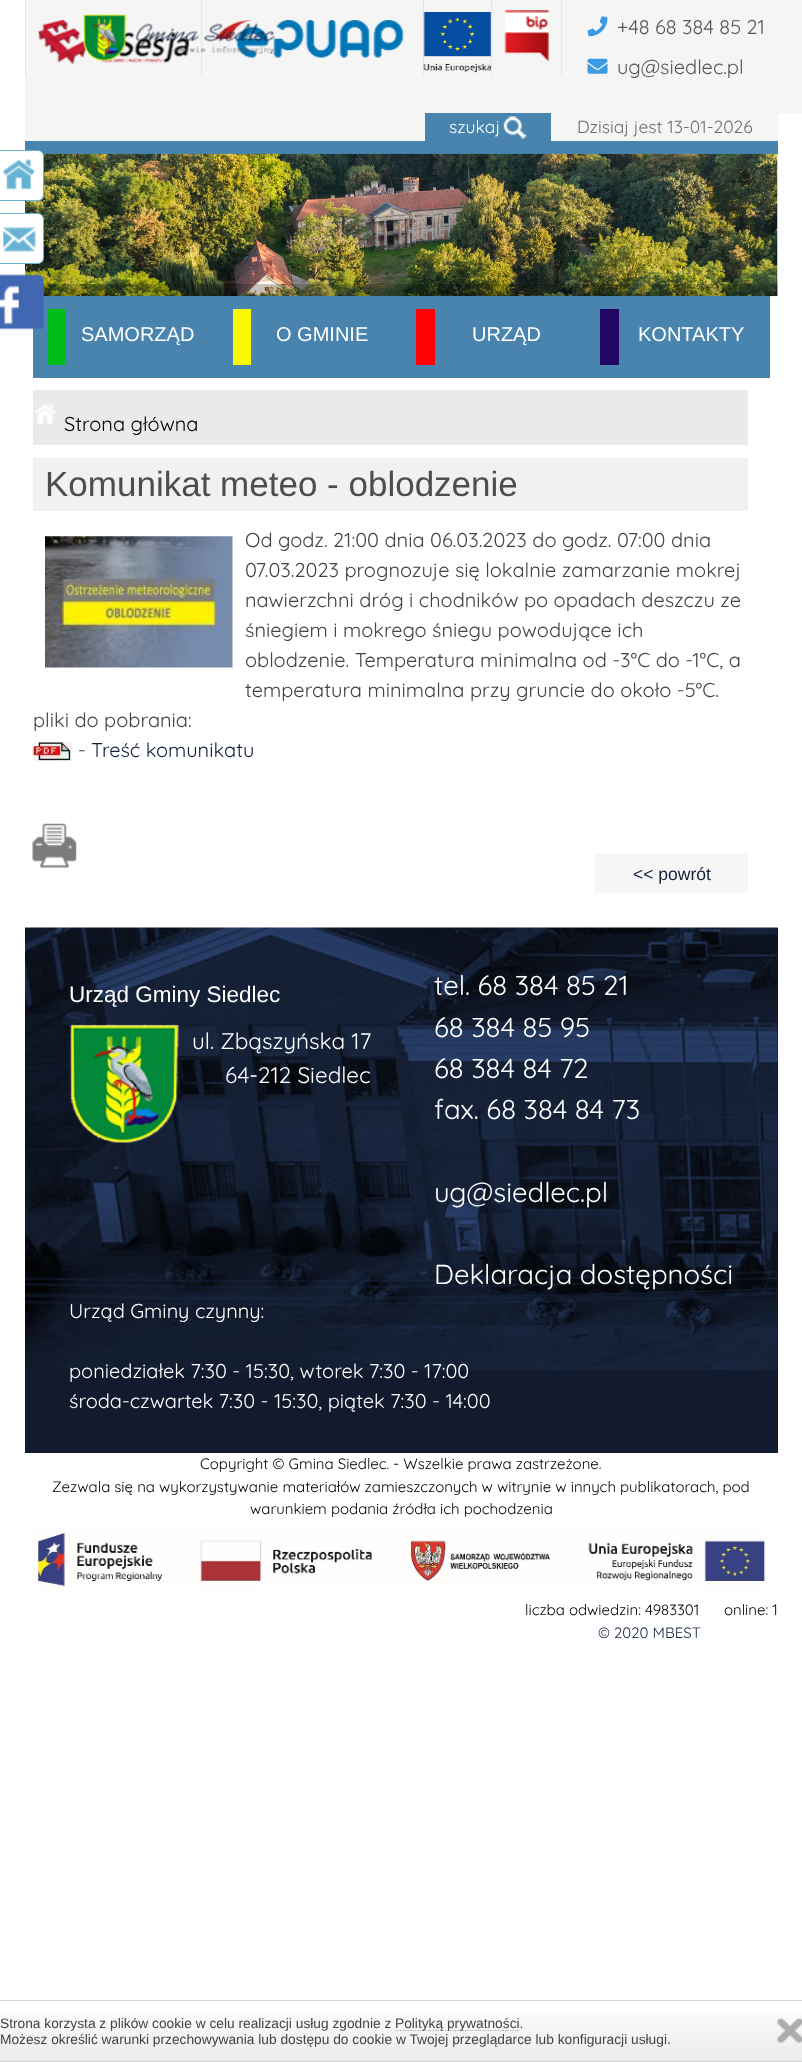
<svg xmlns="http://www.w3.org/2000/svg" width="802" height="2062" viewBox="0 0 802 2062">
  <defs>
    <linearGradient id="g1" gradientUnits="userSpaceOnUse" x1="401" y1="2001" x2="401" y2="2061"><stop offset="0" stop-color="rgb(255,255,255)"/><stop offset="1" stop-color="rgb(235,235,235)"/></linearGradient>
  </defs>
  <rect width="100%" height="100%" fill="rgb(255,255,255)"/>
  <rect x="25" y="141" width="753" height="13" fill="rgb(72,132,173)"/>
  <image x="25" y="153" width="753" height="144" href="pic10.png"/>
  <path d="M-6.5 150.5H38C41 150.5 43.5 153 43.5 156V195C43.5 198 41 200.5 38 200.5H-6.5Z" fill="rgb(255,255,255)" stroke="rgb(103,178,211)"/>
  <image x="3" y="159" width="32" height="31" href="pic1.png"/>
  <rect x="25" y="0" width="777" height="113" fill="rgb(245,245,245)"/>
  <rect x="201" y="0" width="1" height="75" fill="rgb(229,229,229)"/>
  <image x="38" y="20" width="151" height="44" href="pic4.png"/>
  <image x="214" y="20" width="190" height="38" href="pic5.png"/>
  <image x="83" y="14" width="192" height="48" href="pic2.png"/>
  <rect x="25" y="0" width="1" height="75" fill="rgb(229,229,229)"/>
  <rect x="423" y="0" width="1" height="75" fill="rgb(229,229,229)"/>
  <rect x="491" y="0" width="1" height="75" fill="rgb(229,229,229)"/>
  <image x="504" y="10" width="45" height="52" href="pic3.png"/>
  <rect x="561" y="0" width="1" height="75" fill="rgb(229,229,229)"/>
  <image x="423" y="12" width="68" height="61" href="pic6.png"/>
  <image x="587" y="16" width="21" height="21" href="pic7.png"/>
  <text x="617" y="34" font-family="Quicksand" font-size="20" font-weight="300" fill="rgb(87,87,87)">+48 68 384 85 21</text>
  <image x="587" y="58" width="21" height="16" href="pic8.png"/>
  <text x="617" y="74" font-family="Quicksand" font-size="20" font-weight="300" fill="rgb(87,87,87)">ug@siedlec.pl</text>
  <rect x="25" y="113" width="753" height="28" fill="rgb(245,245,245)"/>
  <rect x="425" y="113" width="126" height="28" fill="rgb(72,132,173)"/>
  <text x="449" y="133" font-family="Quicksand" font-size="17.5" font-weight="300" fill="rgb(255,255,255)">szukaj</text>
  <image x="503" y="116" width="24" height="23" href="pic9.png"/>
  <text x="577" y="133" font-family="Quicksand" font-size="17.5" font-weight="300" fill="rgb(110,110,110)">Dzisiaj jest 13-01-2026</text>
  <rect x="43" y="284" width="735" height="12" fill="rgba(0,0,0,0.21)"/>
  <rect x="33" y="296" width="737" height="82" fill="rgb(72,132,173)"/>
  <rect x="48" y="309" width="18" height="56" fill="rgb(0,189,27)"/>
  <text x="81" y="341" font-family="Liberation Sans" font-size="20" fill="rgb(255,255,255)">SAMORZĄD</text>
  <rect x="233" y="309" width="18" height="56" fill="rgb(253,248,1)"/>
  <text x="276" y="341" font-family="Liberation Sans" font-size="20" fill="rgb(255,255,255)">O GMINIE</text>
  <rect x="416" y="309" width="19" height="56" fill="rgb(255,2,2)"/>
  <text x="472" y="341" font-family="Liberation Sans" font-size="20" fill="rgb(255,255,255)">URZĄD</text>
  <rect x="600" y="309" width="19" height="56" fill="rgb(34,7,99)"/>
  <text x="638" y="341" font-family="Liberation Sans" font-size="20" fill="rgb(255,255,255)">KONTAKTY</text>
  <rect x="33" y="390" width="715" height="55" fill="rgb(236,233,233)"/>
  <image x="34" y="403" width="22" height="21" href="pic11.png"/>
  <text x="64" y="431" font-family="Quicksand" font-size="20" font-weight="300" fill="rgb(0,0,0)">Strona główna</text>
  <rect x="33" y="458" width="715" height="53" fill="rgb(242,240,240)"/>
  <text x="45" y="496" font-family="Liberation Sans" font-size="35" fill="rgb(78,76,76)">Komunikat meteo - oblodzenie</text>
  <image x="45" y="536" width="188" height="132" href="pic12.png"/>
  <g font-family="Quicksand" font-size="20" font-weight="300" fill="rgb(67,67,67)">
    <text>
      <tspan x="245" y="547">Od godz. 21:00 dnia 06.03.2023 do godz. 07:00 dnia</tspan>
      <tspan x="245" y="577">07.03.2023 prognozuje się lokalnie zamarzanie mokrej</tspan>
      <tspan x="245" y="607">nawierzchni dróg i chodników po opadach deszczu ze</tspan>
      <tspan x="245" y="637">śniegiem i mokrego śniegu powodujące ich</tspan>
      <tspan x="245" y="667">oblodzenie. Temperatura minimalna od -3°C do -1°C, a</tspan>
      <tspan x="245" y="697">temperatura minimalna przy gruncie do około -5°C.</tspan>
    </text>
    <text x="33" y="727">pliki do pobrania:</text>
  </g>
  <image x="32" y="741" width="41" height="21" href="pic13.png"/>
  <text x="78" y="757" font-family="Quicksand" font-size="20" font-weight="300" fill="rgb(67,67,67)">-</text>
  <text x="91" y="757" font-family="Quicksand" font-size="20" font-weight="300" fill="rgb(18,32,61)">Treść komunikatu</text>
  <image x="32" y="823" width="45" height="45" href="pic14.png"/>
  <rect x="595" y="854" width="153" height="39" fill="rgb(246,246,246)"/>
  <text x="633" y="880" font-family="Liberation Sans" font-size="17.5" fill="rgb(18,32,61)">&lt;&lt; powrót</text>
  <path d="M-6.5 213.5H38C41 213.5 43.5 216 43.5 219V258C43.5 261 41 263.5 38 263.5H-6.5Z" fill="rgb(255,255,255)" stroke="rgb(103,178,211)"/>
  <image x="3" y="227" width="33" height="25" href="pic15.png"/>
  <image x="0" y="274" width="44" height="56" href="pic16.png"/>
  <rect x="25" y="928" width="753" height="525" fill="rgb(18,26,45)"/>
  <image x="25" y="927" width="753" height="443" href="pic17.png"/>
  <text x="69" y="1002" font-family="Liberation Sans" font-size="22.5" fill="rgb(255,255,255)">Urząd Gminy Siedlec</text>
  <image x="69" y="1023" width="110" height="120" href="pic18.png"/>
  <g font-family="Quicksand" font-size="22.5" font-weight="300" fill="rgb(255,255,255)">
    <text x="192" y="1049">ul. Zbąszyńska 17</text>
    <text x="225" y="1083">64-212 Siedlec</text>
  </g>
  <g font-family="Quicksand" font-size="27.5" font-weight="300" fill="rgb(255,255,255)">
    <text>
      <tspan x="434" y="995">tel. 68 384 85 21</tspan>
      <tspan x="434" y="1037">68 384 85 95</tspan>
      <tspan x="434" y="1078">68 384 84 72</tspan>
      <tspan x="434" y="1119">fax. 68 384 84 73</tspan>
    </text>
    <text x="434" y="1202">ug@siedlec.pl</text>
    <text x="434" y="1284">Deklaracja dostępności</text>
  </g>
  <g font-family="Quicksand" font-size="20" font-weight="300" fill="rgb(255,255,255)">
    <text x="69" y="1318">Urząd Gminy czynny:</text>
    <text>
      <tspan x="69" y="1378">poniedziałek 7:30 - 15:30, wtorek 7:30 - 17:00</tspan>
      <tspan x="69" y="1408">środa-czwartek 7:30 - 15:30, piątek 7:30 - 14:00</tspan>
    </text>
  </g>
  <g font-family="Quicksand" font-size="15" font-weight="300" fill="rgb(0,0,0)">
    <text x="200" y="1469">Copyright © Gmina Siedlec. - Wszelkie prawa zastrzeżone.</text>
    <text x="52" y="1492">Zezwala się na wykorzystywanie materiałów zamieszczonych w witrynie w innych publikatorach, pod</text>
    <text x="250" y="1514">warunkiem podania źródła ich pochodzenia</text>
  </g>
  <image x="32" y="1527" width="734" height="62" href="pic19.png"/>
  <text x="525" y="1615" font-family="Quicksand" font-size="15" font-weight="300" fill="rgb(0,0,0)" xml:space="preserve">liczba odwiedzin: 4983301      online: 1</text>
  <text x="598" y="1638" font-family="Quicksand" font-size="15" font-weight="300" fill="rgb(18,32,61)">© 2020 MBEST</text>
  <rect x="0" y="2009" width="802" height="52" fill="url(#g1)"/>
  <rect x="0" y="2000" width="802" height="1" fill="rgb(215,215,215)"/>
  <rect x="0" y="2061" width="802" height="1" fill="rgb(215,215,215)"/>
  <text x="0" y="2028" font-family="Liberation Sans" font-size="13.75" fill="rgb(67,67,67)">Strona korzysta z plików cookie w celu realizacji usług zgodnie z</text>
  <path d="M395 2030.5H520" fill="none" stroke="rgb(174,174,174)" stroke-width="1.2" stroke-dasharray="1.25 1.25"/>
  <text x="395" y="2028" font-family="Liberation Sans" font-size="13.75" fill="rgb(67,67,67)">Polityką prywatności.</text>
  <image x="777" y="2018" width="25" height="25" href="pic20.png"/>
  <text x="0" y="2044" font-family="Liberation Sans" font-size="13.75" fill="rgb(67,67,67)">Możesz określić warunki przechowywania lub dostępu do cookie w Twojej przeglądarce lub konfiguracji usługi.</text>
</svg>
